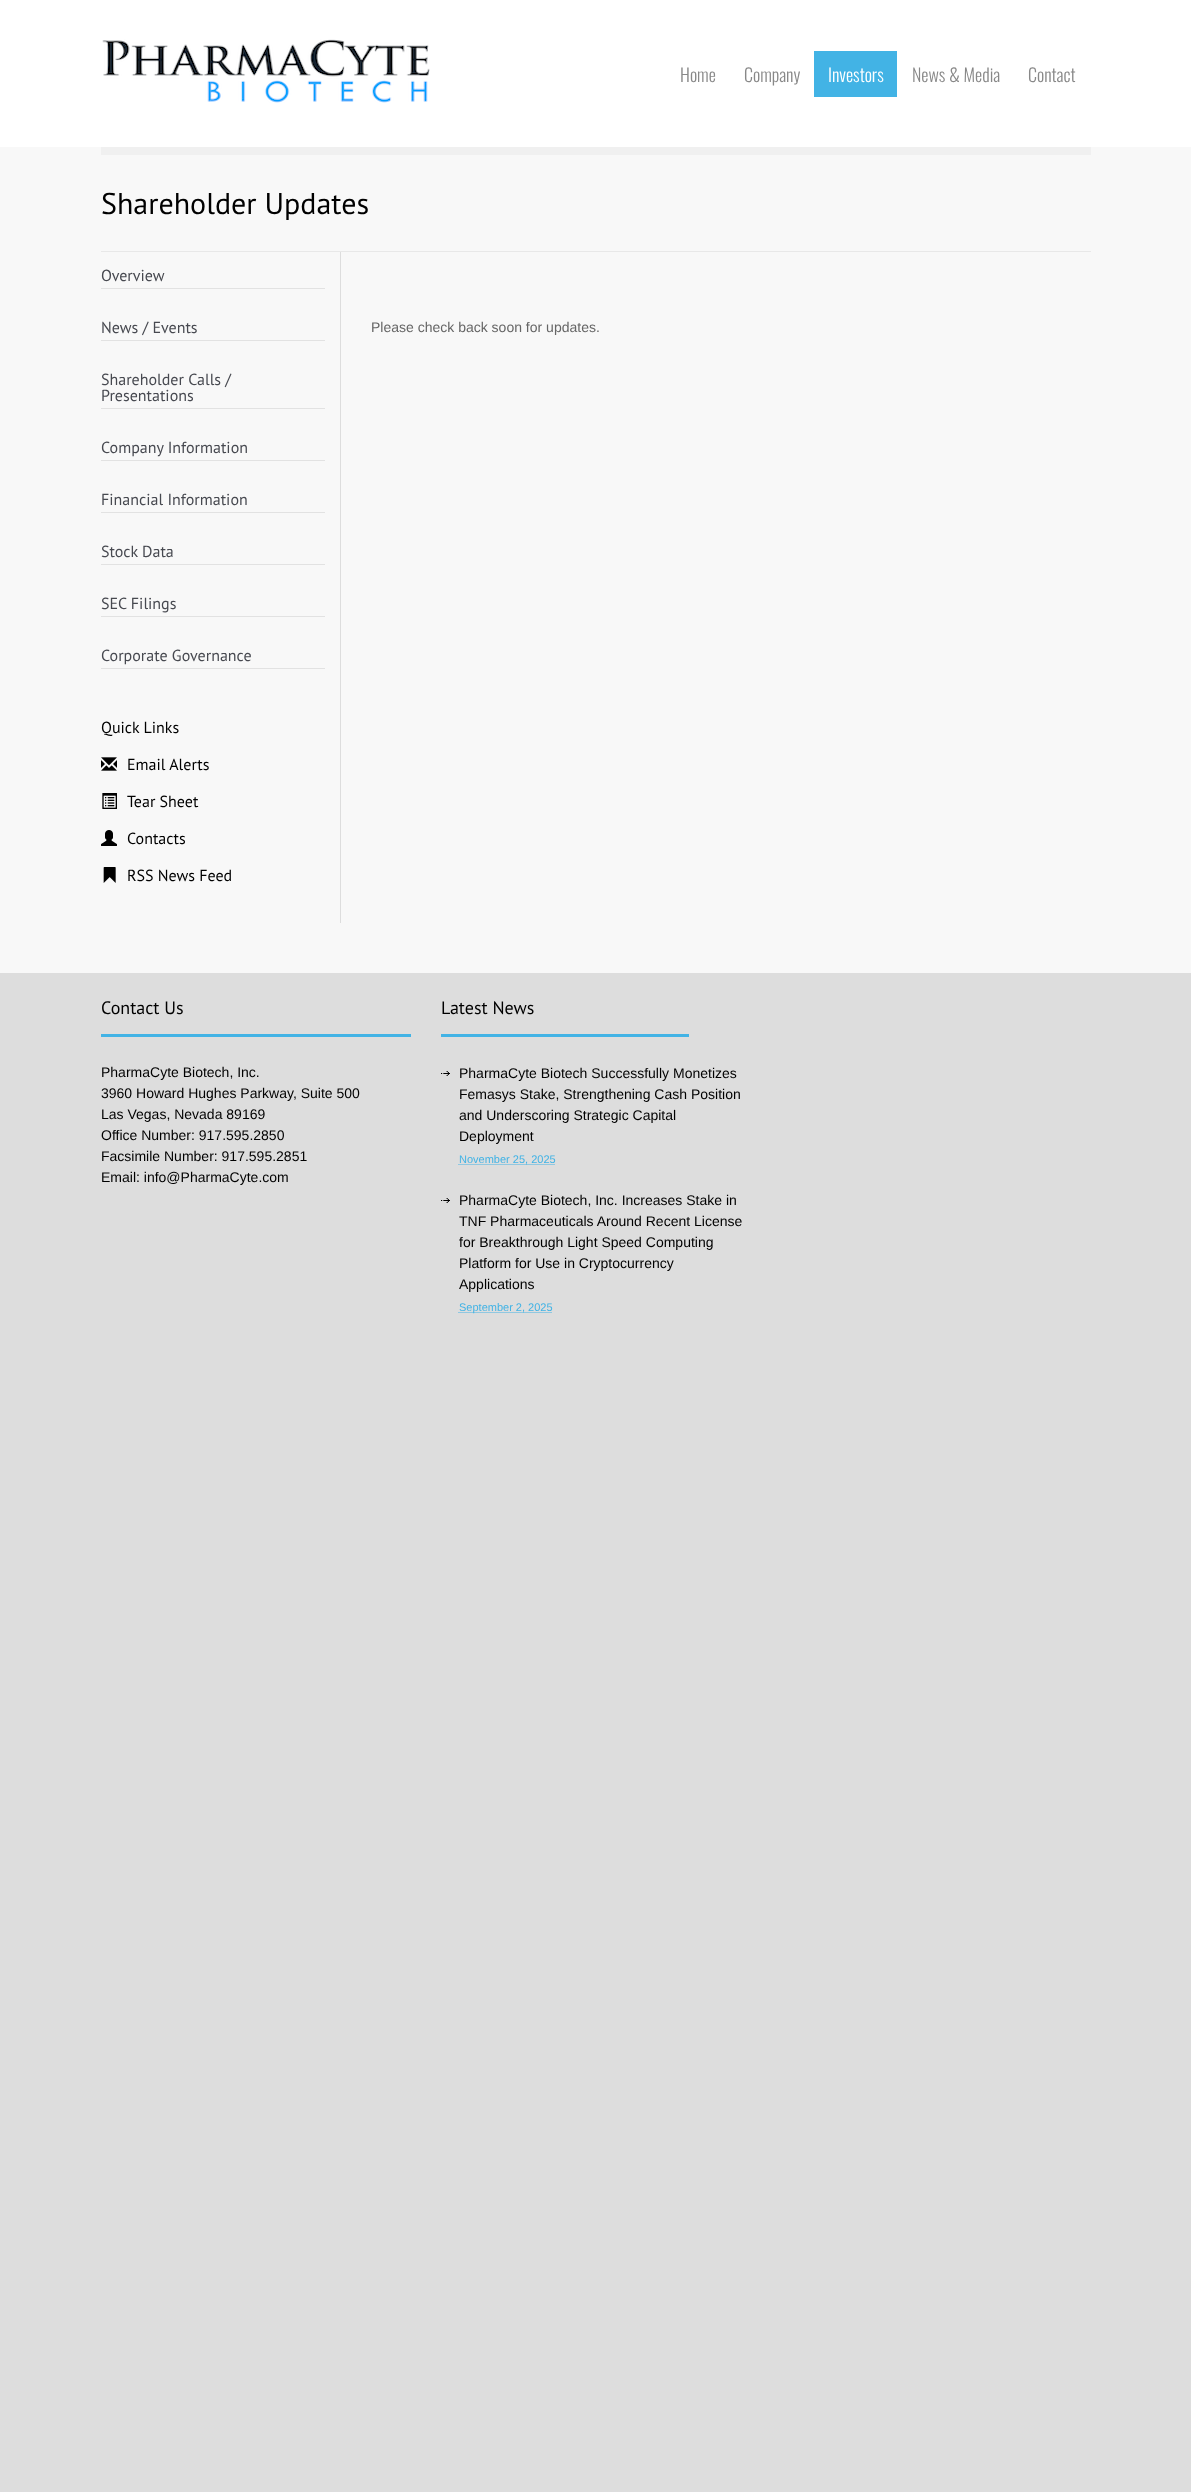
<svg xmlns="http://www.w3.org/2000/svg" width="1191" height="2492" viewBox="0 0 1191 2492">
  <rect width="100%" height="100%" fill="rgb(221,221,221)"/>
  <rect x="0" y="147" width="1191" height="826" fill="rgb(248,248,248)"/>
  <rect x="0" y="0" width="1191" height="147" fill="rgb(255,255,255)"/>
  <image x="102" y="39" width="328" height="64" href="pic1.png"/>
  <g font-family="Oswald" font-size="18" font-weight="300" fill="rgb(136,136,136)">
    <text x="680" y="82">Home</text>
    <text x="744" y="82">Company</text>
  </g>
  <rect x="814" y="51" width="83" height="46" fill="rgb(66,179,229)"/>
  <text x="828" y="82" font-family="Oswald" font-size="18" font-weight="300" fill="rgb(255,255,255)">Investors</text>
  <g font-family="Oswald" font-size="18" font-weight="300" fill="rgb(136,136,136)">
    <text x="912" y="82">News &amp; Media</text>
    <text x="1028" y="82">Contact</text>
  </g>
  <rect x="101" y="147" width="990" height="8" fill="rgb(240,240,240)"/>
  <rect x="101" y="251" width="990" height="1" fill="rgb(232,232,232)"/>
  <text x="101" y="214" font-family="PT Sans" font-size="30" fill="rgb(0,0,0)">Shareholder Updates</text>
  <rect x="340" y="252" width="1" height="671" fill="rgb(221,221,221)"/>
  <rect x="101" y="288" width="224" height="1" fill="rgb(226,226,226)"/>
  <text x="101" y="281" font-family="PT Sans" font-size="16" fill="rgb(71,73,80)">Overview</text>
  <rect x="101" y="340" width="224" height="1" fill="rgb(226,226,226)"/>
  <text x="101" y="333" font-family="PT Sans" font-size="16" fill="rgb(71,73,80)">News / Events</text>
  <rect x="101" y="408" width="224" height="1" fill="rgb(226,226,226)"/>
  <g font-family="PT Sans" font-size="16" fill="rgb(71,73,80)">
    <text>
      <tspan x="101" y="385">Shareholder Calls /</tspan>
      <tspan x="101" y="401">Presentations</tspan>
    </text>
  </g>
  <rect x="101" y="460" width="224" height="1" fill="rgb(226,226,226)"/>
  <text x="101" y="453" font-family="PT Sans" font-size="16" fill="rgb(71,73,80)">Company Information</text>
  <rect x="101" y="512" width="224" height="1" fill="rgb(226,226,226)"/>
  <text x="101" y="505" font-family="PT Sans" font-size="16" fill="rgb(71,73,80)">Financial Information</text>
  <rect x="101" y="564" width="224" height="1" fill="rgb(226,226,226)"/>
  <text x="101" y="557" font-family="PT Sans" font-size="16" fill="rgb(71,73,80)">Stock Data</text>
  <rect x="101" y="616" width="224" height="1" fill="rgb(226,226,226)"/>
  <text x="101" y="609" font-family="PT Sans" font-size="16" fill="rgb(71,73,80)">SEC Filings</text>
  <rect x="101" y="668" width="224" height="1" fill="rgb(226,226,226)"/>
  <text x="101" y="661" font-family="PT Sans" font-size="16" fill="rgb(71,73,80)">Corporate Governance</text>
  <text x="101" y="733" font-family="PT Sans" font-size="16" fill="rgb(0,0,0)">Quick Links</text>
  <image x="101" y="757" width="16" height="14" href="pic2.png"/>
  <text x="127" y="770" font-family="PT Sans" font-size="16" fill="rgb(0,0,0)">Email Alerts</text>
  <image x="102" y="793" width="15" height="16" href="pic3.png"/>
  <text x="127" y="807" font-family="PT Sans" font-size="16" fill="rgb(0,0,0)">Tear Sheet</text>
  <image x="101" y="830" width="16" height="16" href="pic4.png"/>
  <text x="127" y="844" font-family="PT Sans" font-size="16" fill="rgb(0,0,0)">Contacts</text>
  <image x="103" y="867" width="13" height="16" href="pic5.png"/>
  <text x="127" y="881" font-family="PT Sans" font-size="16" fill="rgb(0,0,0)">RSS News Feed</text>
  <text x="371" y="332" font-family="Liberation Sans" font-size="14" fill="rgb(102,102,102)">Please check back soon for updates.</text>
  <text x="101" y="1014" font-family="PT Sans" font-size="18" fill="rgb(0,0,0)">Contact Us</text>
  <rect x="101" y="1034" width="310" height="3" fill="rgb(66,179,229)"/>
  <g font-family="Liberation Sans" font-size="14" fill="rgb(0,0,0)">
    <text>
      <tspan x="101" y="1077">PharmaCyte Biotech, Inc.</tspan>
      <tspan x="101" y="1098">3960 Howard Hughes Parkway, Suite 500</tspan>
      <tspan x="101" y="1119">Las Vegas, Nevada 89169</tspan>
      <tspan x="101" y="1140">Office Number: 917.595.2850</tspan>
      <tspan x="101" y="1161">Facsimile Number: 917.595.2851</tspan>
      <tspan x="101" y="1182">Email: info@PharmaCyte.com</tspan>
    </text>
  </g>
  <text x="441" y="1014" font-family="PT Sans" font-size="18" fill="rgb(0,0,0)">Latest News</text>
  <rect x="441" y="1034" width="248" height="3" fill="rgb(66,179,229)"/>
  <image x="441" y="1071" width="9" height="5" href="pic6.png"/>
  <g font-family="Liberation Sans" font-size="14" fill="rgb(0,0,0)">
    <text>
      <tspan x="459" y="1078">PharmaCyte Biotech Successfully Monetizes</tspan>
      <tspan x="459" y="1099">Femasys Stake, Strengthening Cash Position</tspan>
      <tspan x="459" y="1120">and Underscoring Strategic Capital</tspan>
      <tspan x="459" y="1141">Deployment</tspan>
    </text>
  </g>
  <path d="M458.5 1164.5H555" fill="none" stroke="rgb(66,179,229)" stroke-dasharray="1 1"/>
  <text x="459" y="1163" font-family="Liberation Sans" font-size="11" fill="rgb(66,179,229)">November 25, 2025</text>
  <image x="441" y="1198" width="9" height="5" href="pic6.png"/>
  <g font-family="Liberation Sans" font-size="14" fill="rgb(0,0,0)">
    <text>
      <tspan x="459" y="1205">PharmaCyte Biotech, Inc. Increases Stake in</tspan>
      <tspan x="459" y="1226">TNF Pharmaceuticals Around Recent License</tspan>
      <tspan x="459" y="1247">for Breakthrough Light Speed Computing</tspan>
      <tspan x="459" y="1268">Platform for Use in Cryptocurrency</tspan>
      <tspan x="459" y="1289">Applications</tspan>
    </text>
  </g>
  <path d="M458.5 1312.5H552" fill="none" stroke="rgb(66,179,229)" stroke-dasharray="1 1"/>
  <text x="459" y="1311" font-family="Liberation Sans" font-size="11" fill="rgb(66,179,229)">September 2, 2025</text>
</svg>
